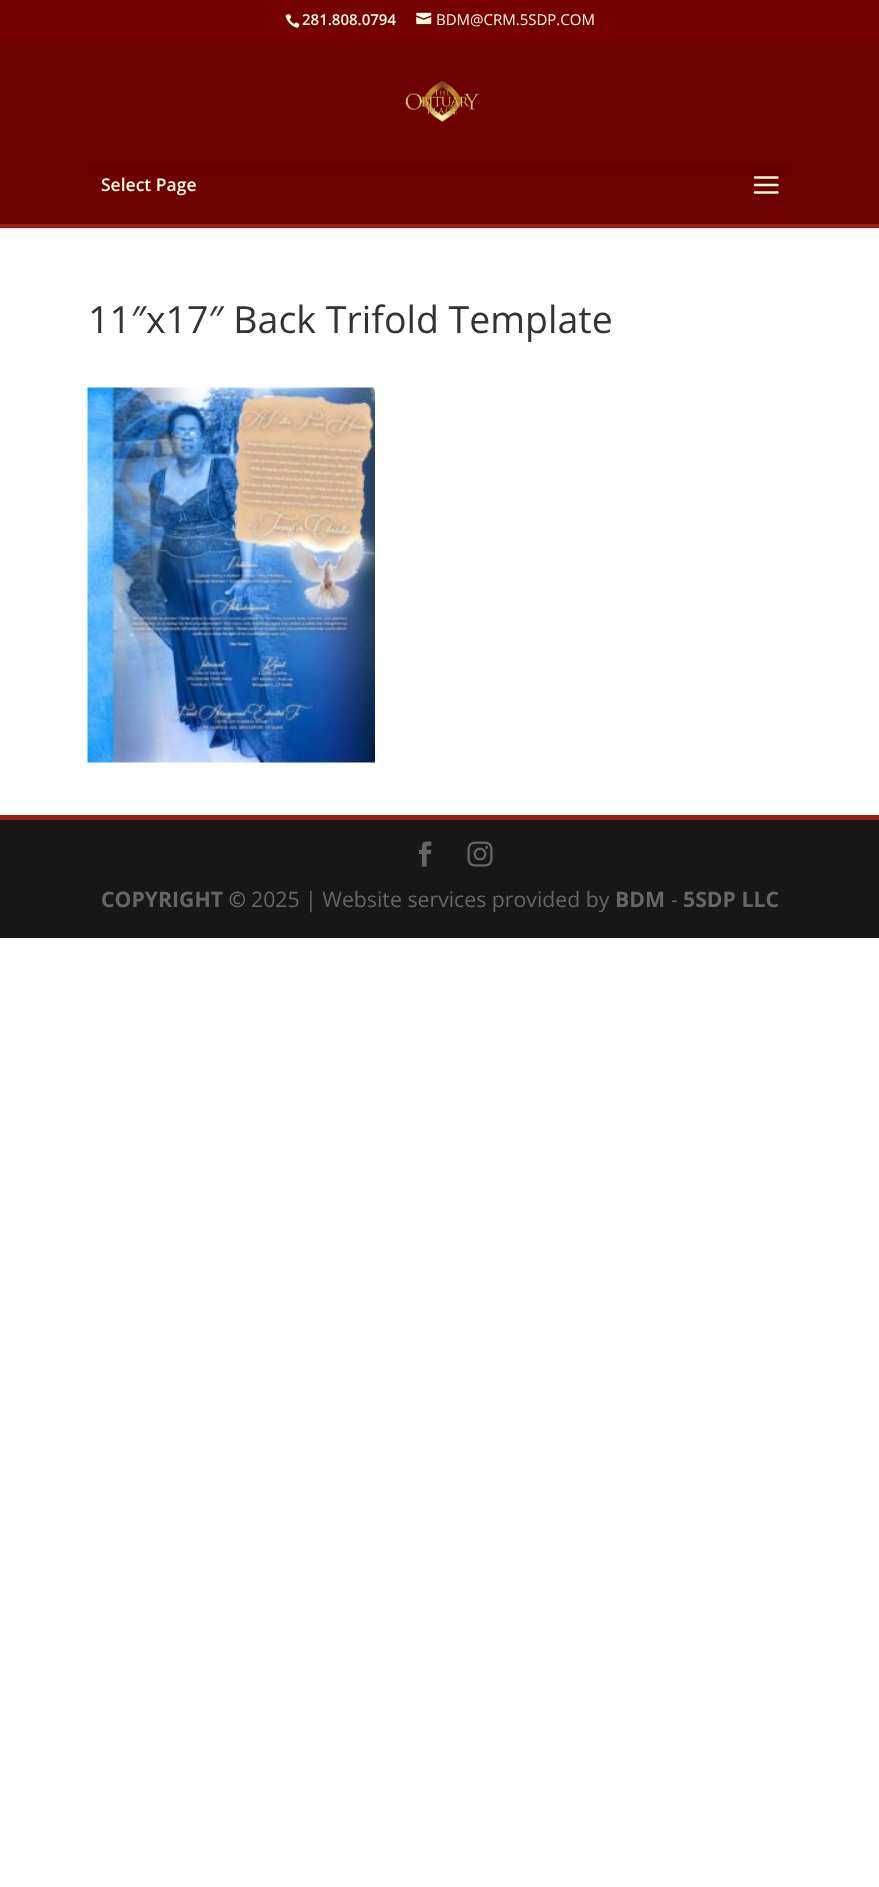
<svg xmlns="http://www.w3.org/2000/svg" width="879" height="1887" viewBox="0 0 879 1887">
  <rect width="100%" height="100%" fill="rgb(255,255,255)"/>
  <rect x="0" y="0" width="879" height="39" fill="rgb(117,0,0)"/>
  <image x="285" y="14" width="15" height="14" href="pic1.png"/>
  <text x="302" y="25" font-family="Open Sans" font-size="15" font-weight="600" fill="rgb(252,251,227)">281.808.0794</text>
  <image x="416" y="12" width="16" height="13" href="pic2.png"/>
  <text x="436" y="25" font-family="Open Sans" font-size="15" fill="rgb(252,251,227)">BDM@CRM.5SDP.COM</text>
  <rect x="0" y="228" width="879" height="1" fill="rgb(230,230,230)"/>
  <rect x="0" y="39" width="879" height="185" fill="rgb(109,0,0)"/>
  <rect x="0" y="224" width="879" height="4" fill="rgb(156,27,22)"/>
  <image x="405" y="80" width="74" height="42" href="pic3.png"/>
  <rect x="88" y="164" width="705" height="12" rx="6" fill="rgb(104,0,0)"/>
  <text x="101" y="191" font-family="Open Sans" font-size="17.5" font-weight="600" fill="rgb(252,251,227)">Select Page</text>
  <image x="753" y="176" width="26" height="18" href="pic4.png"/>
  <text x="88" y="333" font-family="Open Sans" font-size="37.5" fill="rgb(51,51,51)">11″x17″ Back Trifold Template</text>
  <image x="87" y="387" width="288" height="376" href="pic5.png"/>
  <rect x="0" y="815" width="879" height="5" fill="rgb(156,27,22)"/>
  <rect x="0" y="820" width="879" height="118" fill="rgb(23,23,23)"/>
  <image x="418" y="841" width="14" height="26" href="pic6.png"/>
  <image x="467" y="841" width="26" height="26" href="pic7.png"/>
  <text x="101" y="907" font-family="Open Sans" font-size="21.25" font-weight="bold" fill="rgb(102,102,102)">COPYRIGHT ©</text>
  <text x="251" y="907" font-family="Open Sans" font-size="21.25" fill="rgb(102,102,102)">2025 | Website services provided by</text>
  <text x="615" y="907" font-family="Open Sans" font-size="21.25" font-weight="bold" fill="rgb(102,102,102)">BDM</text>
  <text x="671" y="907" font-family="Open Sans" font-size="21.25" fill="rgb(102,102,102)">-</text>
  <text x="683" y="907" font-family="Open Sans" font-size="21.25" font-weight="bold" fill="rgb(102,102,102)">5SDP LLC</text>
</svg>
